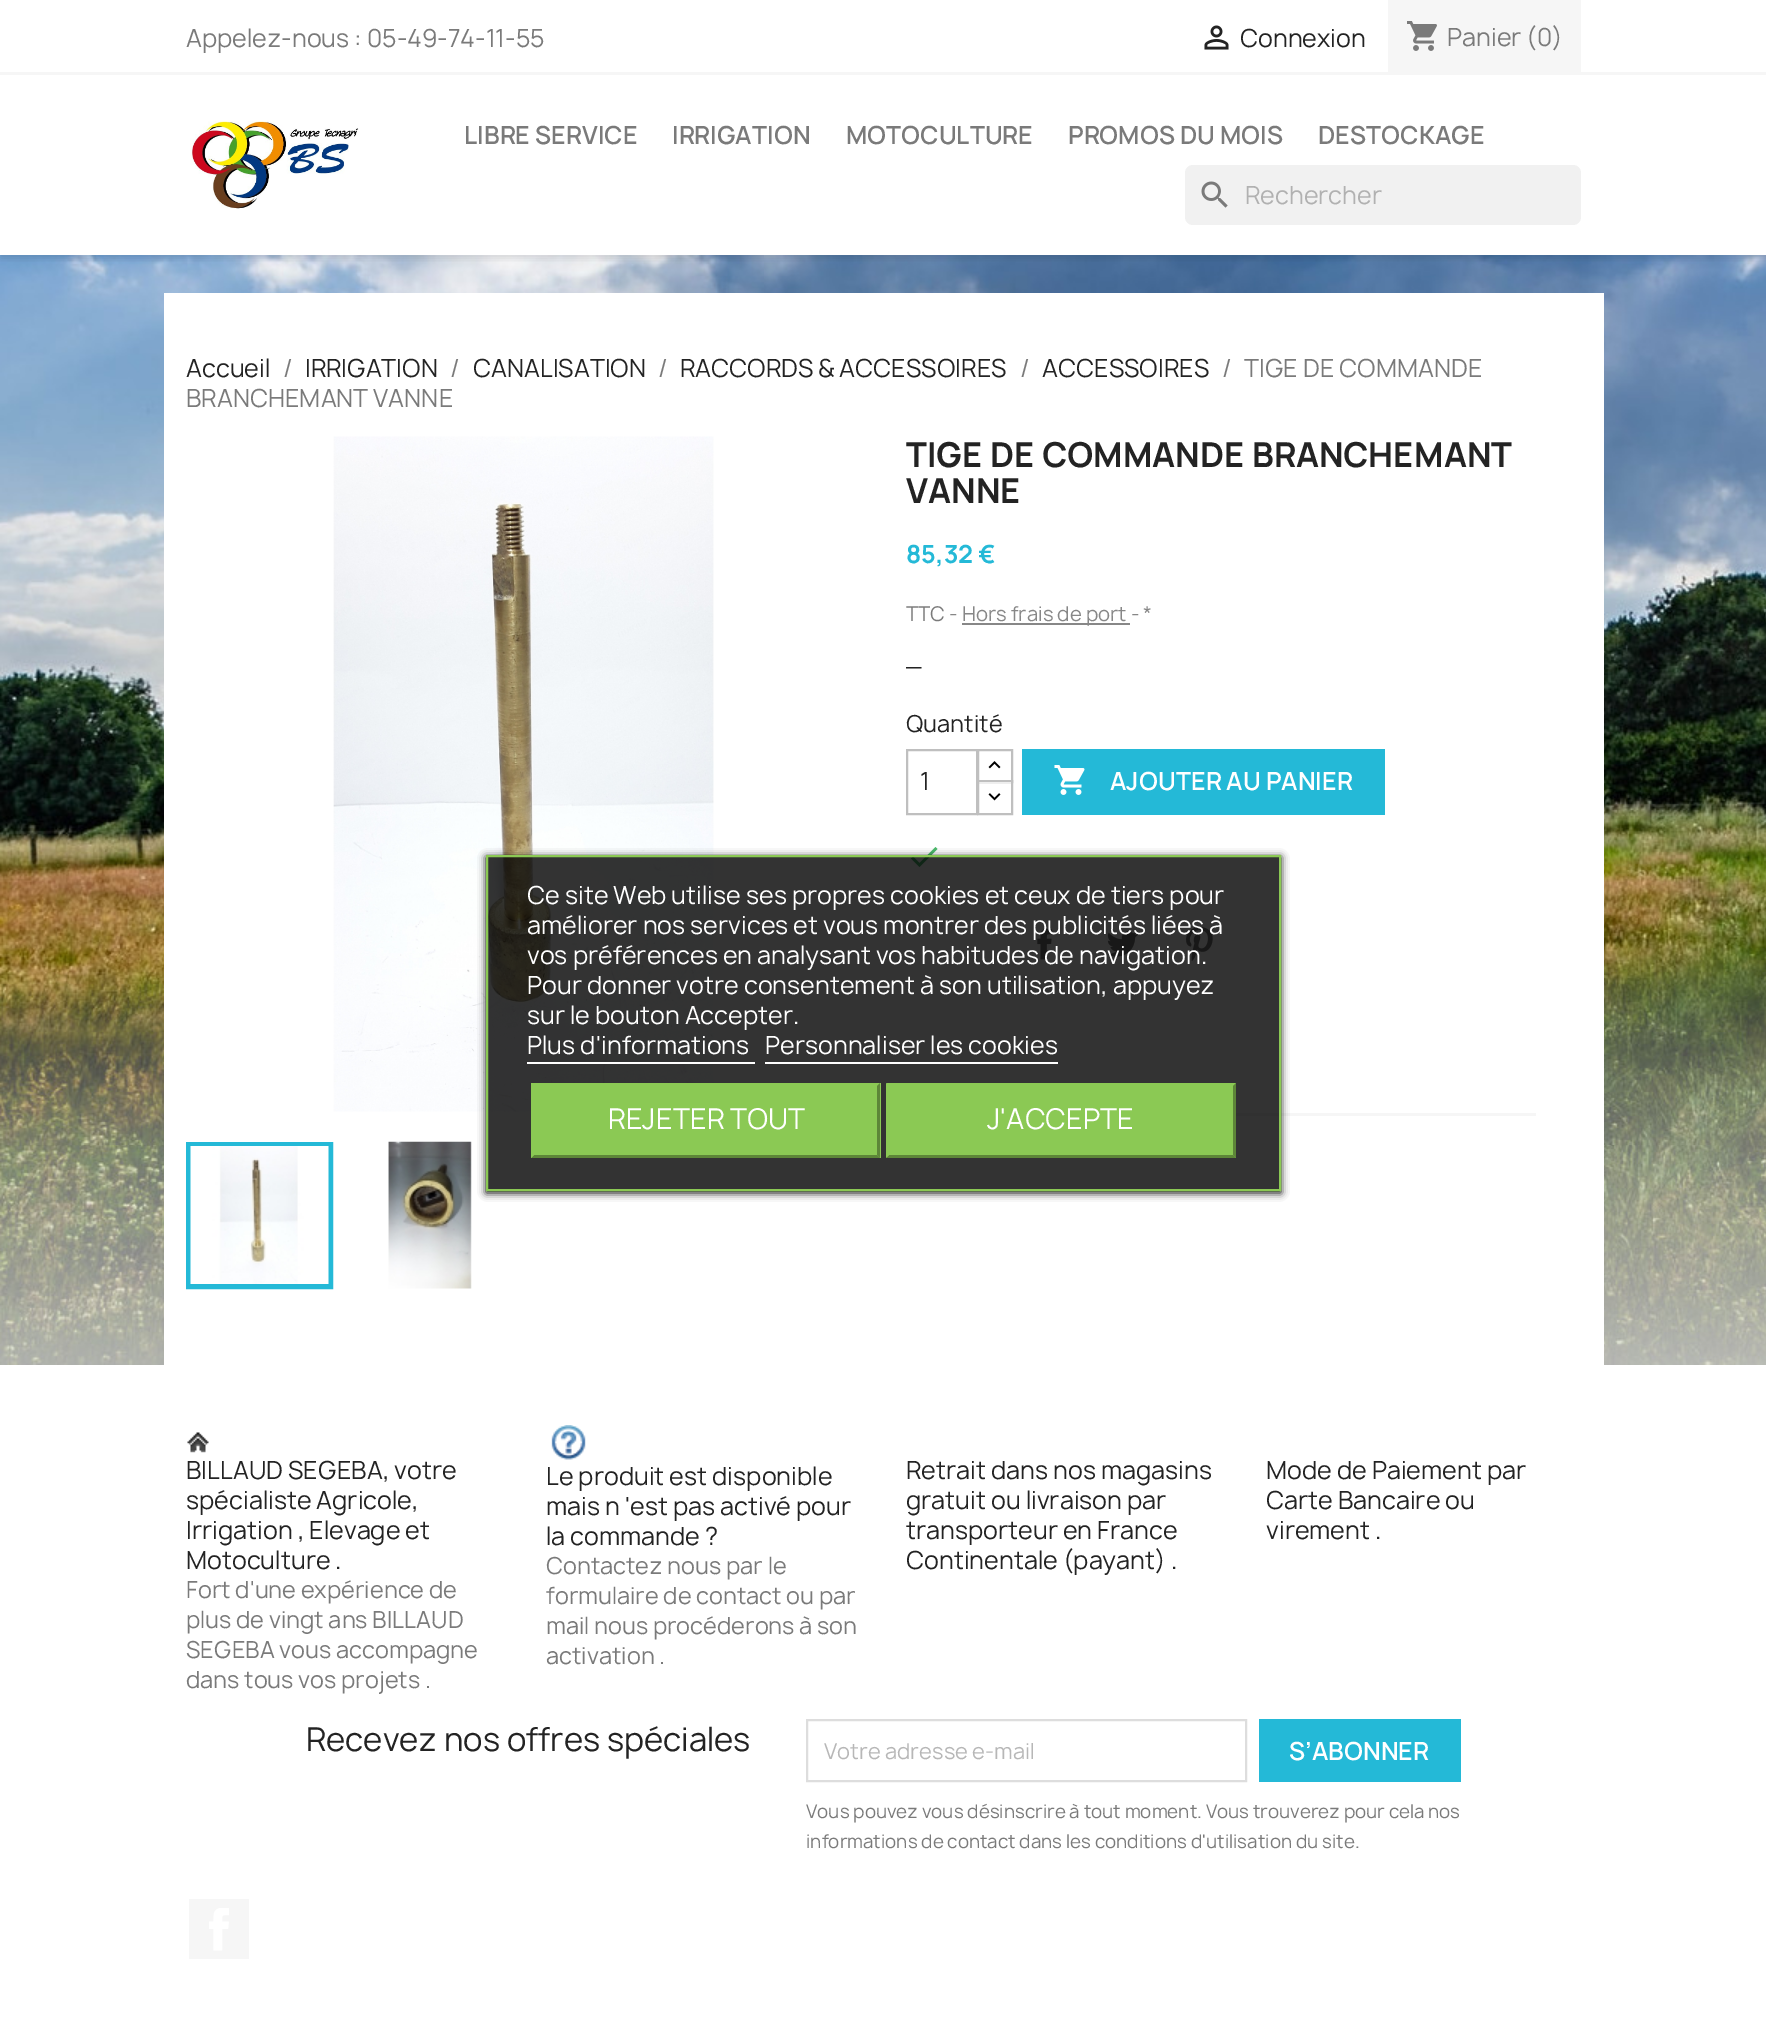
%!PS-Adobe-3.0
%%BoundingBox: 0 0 1766 2044
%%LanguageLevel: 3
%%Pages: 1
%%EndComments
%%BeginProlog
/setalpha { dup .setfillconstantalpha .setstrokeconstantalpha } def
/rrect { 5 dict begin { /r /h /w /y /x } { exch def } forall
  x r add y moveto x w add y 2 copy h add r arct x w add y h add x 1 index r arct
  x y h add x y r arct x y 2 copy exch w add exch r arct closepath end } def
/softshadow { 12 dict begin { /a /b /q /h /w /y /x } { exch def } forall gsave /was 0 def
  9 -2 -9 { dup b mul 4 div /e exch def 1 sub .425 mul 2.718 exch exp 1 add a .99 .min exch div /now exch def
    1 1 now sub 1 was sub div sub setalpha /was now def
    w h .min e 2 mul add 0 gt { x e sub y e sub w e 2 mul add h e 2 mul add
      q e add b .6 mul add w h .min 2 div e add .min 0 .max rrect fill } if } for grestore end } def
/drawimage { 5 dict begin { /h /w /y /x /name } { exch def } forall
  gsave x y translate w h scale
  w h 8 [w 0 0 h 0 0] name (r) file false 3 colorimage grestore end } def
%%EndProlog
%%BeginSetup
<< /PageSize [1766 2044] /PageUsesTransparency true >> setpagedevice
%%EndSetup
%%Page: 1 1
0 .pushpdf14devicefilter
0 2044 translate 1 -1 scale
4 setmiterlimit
1 setgray
0 0 1766 2044 rectfill
(images/5.raw) 0 255 1766 1110 drawimage
gsave
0 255 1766 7 rectclip
0 setgray
0 3 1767 255 0 4 0.11 softshadow
grestore
0.965 setgray
0 72 1766 3 rectfill
(images/1.raw) 1204 25 25 25 drawimage
1388 0 193 72 rectfill
(images/2.raw) 1407 21 30 30 drawimage
(images/3.raw) 190 121 169 88 drawimage
0.945 setgray
1185 165 396 60 8 rrect fill
(images/4.raw) 1201 181 27 27 drawimage
1 setgray
164 293 1440 1072 rectfill
(images/6.raw) 333 436 381 676 drawimage
0.141 0.725 0.843 setrgbcolor
5 setlinewidth
188.5 1144.5 142 142 rectstroke
(images/7.raw) 388 1141 84 148 drawimage
(images/8.raw) 190 1146 139 138 drawimage
0.529 setgray
962 623 168 2 rectfill
0.749 setgray
2 setlinewidth
978 750 34 32 rectstroke
1 setgray
979 782 32 1 rectfill
0.749 setgray
978 781 34 33 rectstroke
907 750 70 64 rectstroke
(images/9.raw) 988 761 13 8 drawimage
(images/10.raw) 988 793 13 8 drawimage
0.141 0.725 0.843 setrgbcolor
1022 749 363 66 rectfill
(images/11.raw) 1054 765 31 30 drawimage
0.298 0.733 0.424 setrgbcolor
newpath 919.5 863 moveto 935.5 847 lineto 937.5 849 lineto 919.5 867 lineto 911 858.5 lineto 913 856.5 lineto closepath fill
(images/12.raw) 1037 928 15 32 drawimage
(images/13.raw) 1107 931 32 26 drawimage
(images/14.raw) 1186 926 27 35 drawimage
0.965 setgray
1236 1113 300 3 rectfill
gsave
newpath 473 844 moveto 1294 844 lineto 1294 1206 lineto 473 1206 lineto closepath 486 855 moveto 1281 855 lineto 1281 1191 lineto 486 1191 lineto closepath eoclip newpath
0 setgray
486 857 795 336 0 4 1 softshadow
grestore
0.8 setalpha
0 setgray
newpath 487 856 moveto 1280 856 lineto 1280 1190 lineto 487 1190 lineto closepath fill
1 setalpha
0.545 0.788 0.329 setrgbcolor
newpath 487 856 moveto 1280 856 lineto 1280 1190 lineto 487 1190 lineto closepath stroke
1 setgray
527 1062 228 2 rectfill
765 1062 293 2 rectfill
0.545 0.788 0.329 setrgbcolor
531 1083 350 75 rectfill
0.365 0.525 0.22 setrgbcolor
newpath 880 1083 moveto 880 1158 lineto 877 1155 lineto 877 1086 lineto closepath fill
newpath 880 1158 moveto 531 1158 lineto 534 1155 lineto 877 1155 lineto closepath fill
0.545 0.788 0.329 setrgbcolor
newpath 531 1158 moveto 531 1083 lineto 534 1086 lineto 534 1155 lineto closepath fill
887 1083 349 75 rectfill
newpath 886 1083 moveto 1236 1083 lineto 1233 1086 lineto 889 1086 lineto closepath fill
0.365 0.525 0.22 setrgbcolor
newpath 1236 1083 moveto 1236 1158 lineto 1233 1155 lineto 1233 1086 lineto closepath fill
newpath 1236 1158 moveto 886 1158 lineto 889 1155 lineto 1233 1155 lineto closepath fill
0.545 0.788 0.329 setrgbcolor
newpath 886 1158 moveto 886 1083 lineto 889 1086 lineto 889 1155 lineto closepath fill
(images/15.raw) 187 1432 22 21 drawimage
(images/16.raw) 551 1425 35 35 drawimage
0.867 setgray
807 1720 439 61 rectstroke
0.141 0.725 0.843 setrgbcolor
1259 1719 202 63 rectfill
0.965 setgray
189 1899 60 60 rectfill
(images/17.raw) 209 1908 20 43 drawimage
/Manrope-Regular [24 0 0 -24 0 0] selectfont
0.478 setgray
186 47 moveto (Appelez-nous : 05-49-74-11-55) show
0.137 setgray
1240 47 moveto (Connexion) show
0.478 setgray
1447 46 moveto (Panier \(0\)) show
/Manrope-SemiBold [24 0 0 -24 0 0] selectfont
464 144 moveto (LIBRE SERVICE) show
672 144 moveto (IRRIGATION) show
846 144 moveto (MOTOCULTURE) show
1068 144 moveto (PROMOS DU MOIS) show
1318 144 moveto (DESTOCKAGE) show
/Manrope-Regular [24 0 0 -24 0 0] selectfont
0.694 setgray
1245 204 moveto (Rechercher) show
0.137 setgray
186 377 moveto (Accueil) show
0.478 setgray
283 377 moveto (/) show
0.137 setgray
305 377 moveto (IRRIGATION) show
0.478 setgray
450 377 moveto (/) show
0.137 setgray
473 377 moveto (CANALISATION) show
0.478 setgray
658 377 moveto (/) show
0.137 setgray
680 377 moveto (RACCORDS & ACCESSOIRES) show
0.478 setgray
1020 377 moveto (/) show
0.137 setgray
1042 377 moveto (ACCESSOIRES) show
0.478 setgray
1222 377 moveto (/) show
1244 377 moveto (TIGE DE COMMANDE) show
186 407 moveto (BRANCHEMANT VANNE) show
/Manrope-Bold [33 0 0 -33 0 0] selectfont
0.137 setgray
906 467 moveto (TIGE DE COMMANDE BRANCHEMANT) show
906 503 moveto (VANNE) show
/Manrope-Bold [24 0 0 -24 0 0] selectfont
0.141 0.725 0.843 setrgbcolor
906 563 moveto (85,32 €) show
/Manrope-Regular [19.5 0 0 -19.5 0 0] selectfont
0.478 setgray
906 621 moveto (TTC) show
0.529 setgray
949 621 moveto (-) show
962 621 moveto (Hors frais de port - *) show
/Manrope-Regular [22.5 0 0 -22.5 0 0] selectfont
0.137 setgray
906 666 moveto (_) show
906 732 moveto (Quantité) show
/Manrope-Regular [24 0 0 -24 0 0] selectfont
920 790 moveto (1) show
/Manrope-SemiBold [24 0 0 -24 0 0] selectfont
1 setgray
1110 790 moveto (AJOUTER AU PANIER) show
/Manrope-Regular [24 0 0 -24 0 0] selectfont
527 904 moveto (Ce site Web utilise ses propres cookies et ceux de tiers pour) show
527 934 moveto (améliorer nos services et vous montrer des publicités liées à) show
527 964 moveto (vos préférences en analysant vos habitudes de navigation.) show
527 994 moveto (Pour donner votre consentement à son utilisation, appuyez) show
527 1024 moveto (sur le bouton Accepter.) show
527 1054 moveto (Plus d'informations) show
765 1054 moveto (Personnaliser les cookies) show
/Manrope-Regular [27.5 0 0 -27.5 0 0] selectfont
608 1129 moveto (REJETER TOUT) show
987 1129 moveto (J'ACCEPTE) show
/Manrope-Regular [24 0 0 -24 0 0] selectfont
0.137 setgray
186 1479 moveto (BILLAUD SEGEBA, votre) show
186 1509 moveto (spécialiste Agricole,) show
186 1539 moveto (Irrigation , Elevage et) show
186 1569 moveto (Motoculture .) show
/Manrope-Regular [22.5 0 0 -22.5 0 0] selectfont
0.478 setgray
186 1598 moveto (Fort d'une expérience de) show
186 1628 moveto (plus de vingt ans BILLAUD) show
186 1658 moveto (SEGEBA vous accompagne) show
186 1688 moveto (dans tous vos projets .) show
/Manrope-Regular [24 0 0 -24 0 0] selectfont
0.137 setgray
546 1485 moveto (Le produit est disponible) show
546 1515 moveto (mais n 'est pas activé pour) show
546 1545 moveto (la commande ?) show
/Manrope-Regular [22.5 0 0 -22.5 0 0] selectfont
0.478 setgray
546 1574 moveto (Contactez nous par le) show
546 1604 moveto (formulaire de contact ou par) show
546 1634 moveto (mail nous procéderons à son) show
546 1664 moveto (activation .) show
/Manrope-Regular [24 0 0 -24 0 0] selectfont
0.137 setgray
906 1479 moveto (Retrait dans nos magasins) show
906 1509 moveto (gratuit ou livraison par) show
906 1539 moveto (transporteur en France) show
906 1569 moveto (Continentale \(payant\) .) show
1266 1479 moveto (Mode de Paiement par) show
1266 1509 moveto (Carte Bancaire ou) show
1266 1539 moveto (virement .) show
/Manrope-Regular [31.5 0 0 -31.5 0 0] selectfont
306 1751 moveto (Recevez nos offres spéciales) show
/Manrope-Regular [21 0 0 -21 0 0] selectfont
0.718 setgray
824 1759 moveto (Votre adresse e-mail) show
/Manrope-SemiBold [24 0 0 -24 0 0] selectfont
1 setgray
1289 1760 moveto (S’ABONNER) show
/Manrope-Regular [18 0 0 -18 0 0] selectfont
0.478 setgray
806 1818 moveto (Vous pouvez vous désinscrire à tout moment. Vous trouverez pour cela nos) show
806 1848 moveto (informations de contact dans les conditions d'utilisation du site.) show
.poppdf14devicefilter showpage
%%EOF
